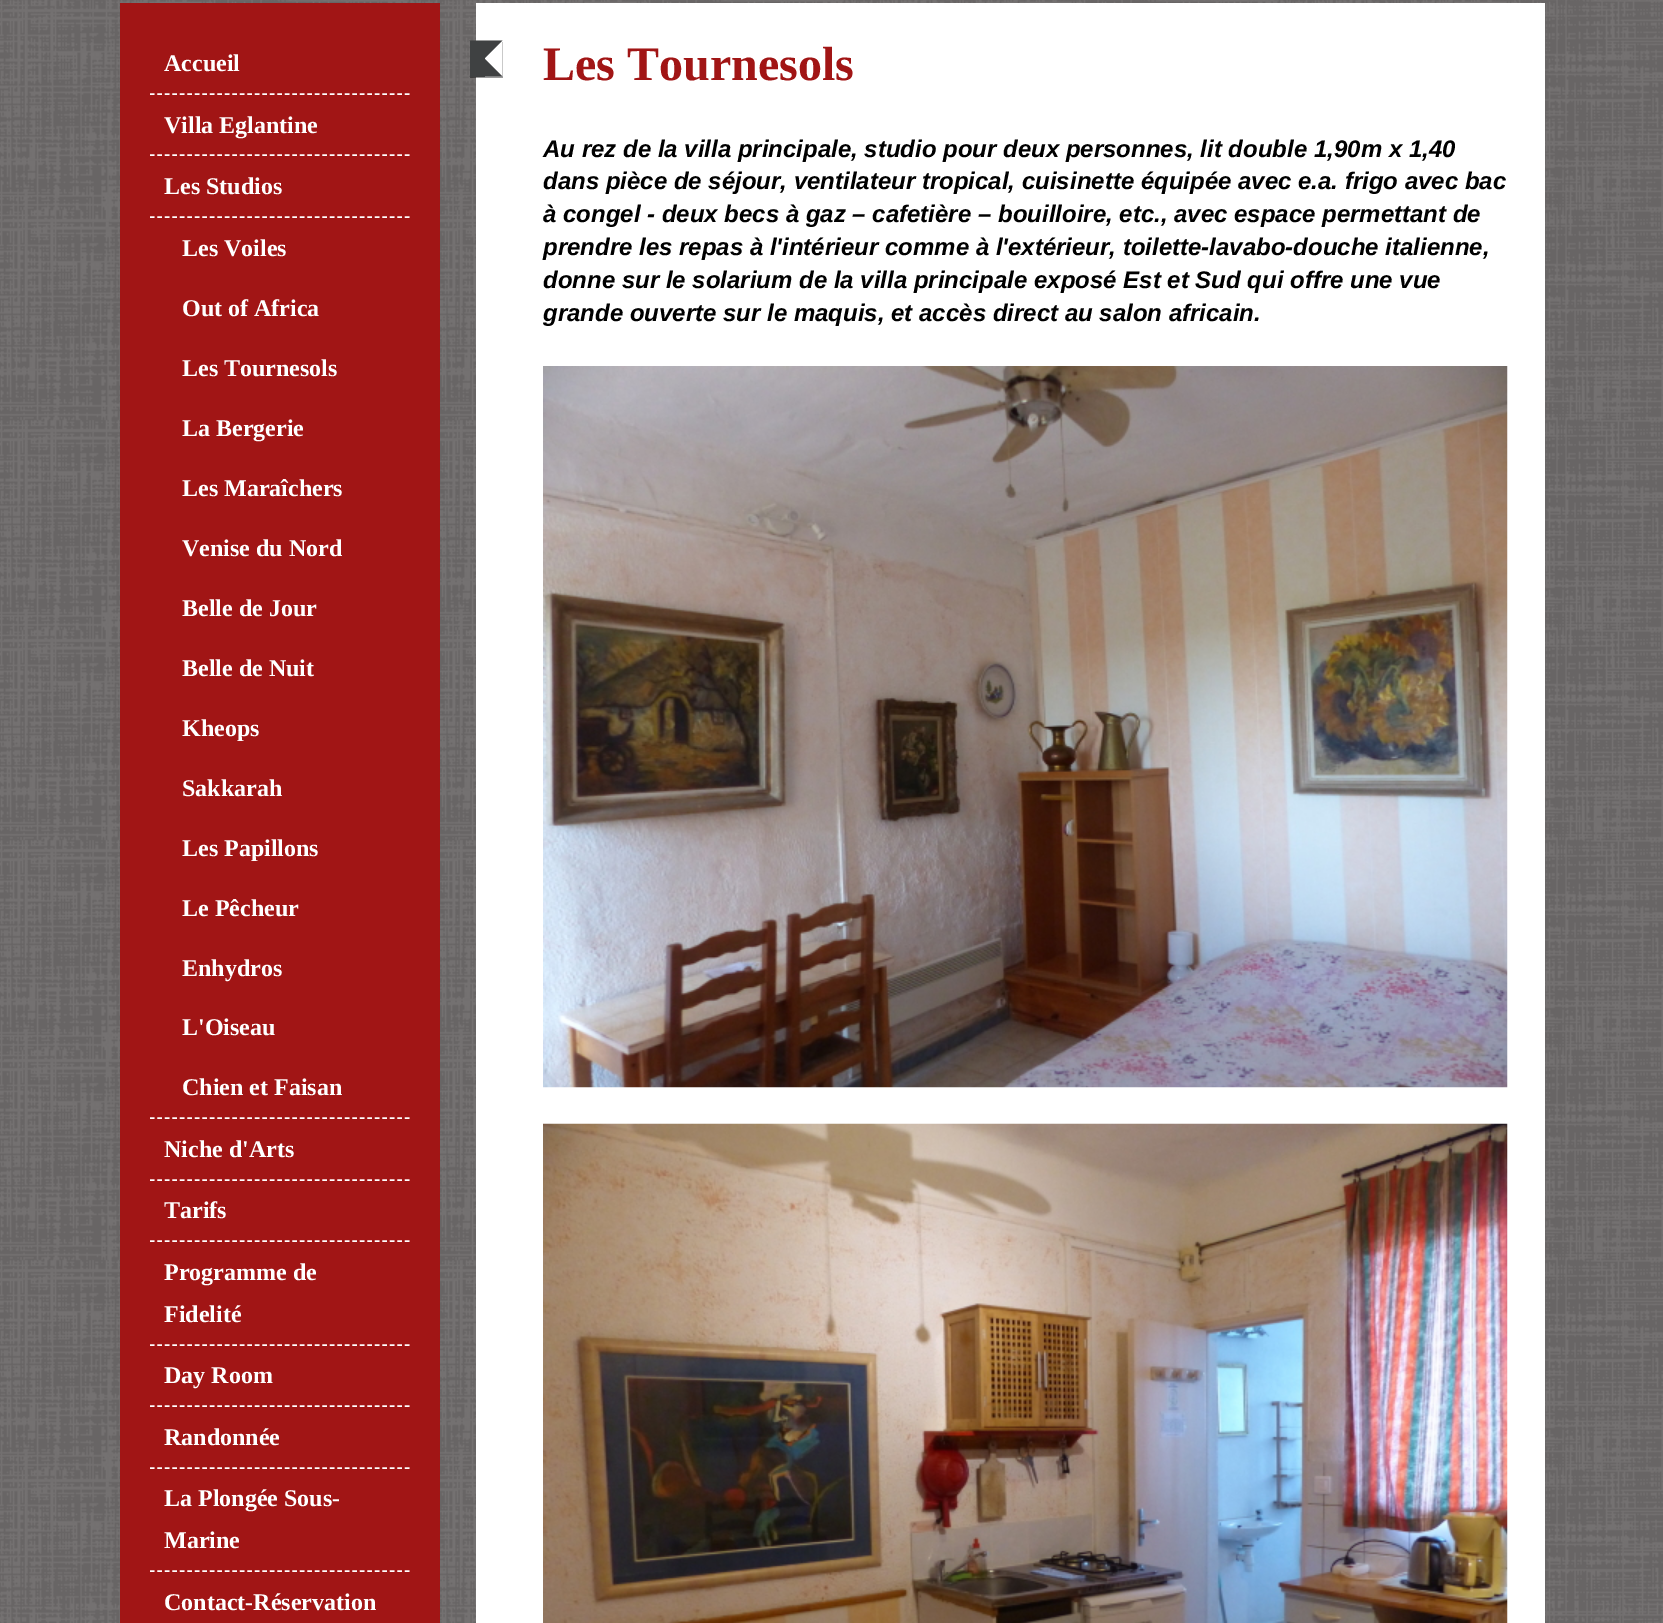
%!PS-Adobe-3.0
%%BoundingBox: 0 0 1663 1623
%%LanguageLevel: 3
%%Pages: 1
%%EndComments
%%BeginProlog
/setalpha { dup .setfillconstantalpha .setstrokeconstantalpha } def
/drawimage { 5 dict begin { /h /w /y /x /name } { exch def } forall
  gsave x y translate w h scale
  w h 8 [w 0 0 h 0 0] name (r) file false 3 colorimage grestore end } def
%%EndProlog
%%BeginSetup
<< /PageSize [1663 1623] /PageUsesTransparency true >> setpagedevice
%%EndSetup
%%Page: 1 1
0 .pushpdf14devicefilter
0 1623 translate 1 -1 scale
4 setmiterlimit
0.502 0.486 0.486 setrgbcolor
0 0 1663 1623 rectfill
(images/1.raw) 0 0 1663 1623 drawimage
0.631 0.082 0.082 setrgbcolor
120 3 320 1620 rectfill
1 setgray
476 3 1069 1620 rectfill
0.4 setalpha
0 setgray
newpath 470 76.5 moveto 470 78 lineto 503 78 lineto 503 42 lineto 502.5 42 lineto 502.5 76.5 lineto closepath fill
1 setalpha
0.247 0.255 0.259 setrgbcolor
newpath 469.5 40.5 moveto 502.5 40.5 lineto 484.5 58.5 lineto closepath fill
newpath 502.5 76.5 moveto 469.5 76.5 lineto 484.5 58.5 lineto closepath fill
470 41 15 36 rectfill
(images/2.raw) 543 366 965 722 drawimage
(images/3.raw) 543 1123 965 500 drawimage
1 setgray
1.5 setlinewidth
[4.5 3] 0 setdash
newpath 150 94 moveto 409.5 94 lineto stroke
newpath 150 155 moveto 409.5 155 lineto stroke
newpath 150 217 moveto 409.5 217 lineto stroke
newpath 150 1118 moveto 409.5 1118 lineto stroke
newpath 150 1180 moveto 409.5 1180 lineto stroke
newpath 150 1241 moveto 409.5 1241 lineto stroke
newpath 150 1345 moveto 409.5 1345 lineto stroke
newpath 150 1406 moveto 409.5 1406 lineto stroke
newpath 150 1468 moveto 409.5 1468 lineto stroke
newpath 150 1571 moveto 409.5 1571 lineto stroke
/LiberationSerif-Bold [48 0 0 -48 0 0] selectfont
0.631 0.082 0.082 setrgbcolor
543 80 moveto (Les Tournesols) show
/LiberationSans-BoldItalic [24 0 0 -24 0 0] selectfont
0 setgray
543 157 moveto (Au rez de la villa principale, studio pour deux personnes, lit double 1,90m x 1,40) show
543 189 moveto (dans pièce de séjour, ventilateur tropical, cuisinette équipée avec e.a. frigo avec bac) show
543 222 moveto (à congel - deux becs à gaz – cafetière – bouilloire, etc., avec espace permettant de) show
543 255 moveto (prendre les repas à l'intérieur comme à l'extérieur, toilette-lavabo-douche italienne,) show
543 288 moveto (donne sur le solarium de la villa principale exposé Est et Sud qui offre une vue) show
543 321 moveto (grande ouverte sur le maquis, et accès direct au salon africain.) show
/LiberationSerif-Bold [24 0 0 -24 0 0] selectfont
1 setgray
164 71 moveto (Accueil) show
164 133 moveto (Villa Eglantine) show
164 194 moveto (Les Studios) show
182 256 moveto (Les Voiles) show
182 316 moveto (Out of Africa) show
182 376 moveto (Les Tournesols) show
182 436 moveto (La Bergerie) show
182 496 moveto (Les Maraîchers) show
182 556 moveto (Venise du Nord) show
182 616 moveto (Belle de Jour) show
182 676 moveto (Belle de Nuit) show
182 736 moveto (Kheops) show
182 796 moveto (Sakkarah) show
182 856 moveto (Les Papillons) show
182 916 moveto (Le Pêcheur) show
182 976 moveto (Enhydros) show
182 1035 moveto (L'Oiseau) show
182 1095 moveto (Chien et Faisan) show
164 1157 moveto (Niche d'Arts) show
164 1218 moveto (Tarifs) show
164 1280 moveto (Programme de) show
164 1322 moveto (Fidelité) show
164 1383 moveto (Day Room) show
164 1445 moveto (Randonnée) show
164 1506 moveto (La Plongée Sous-) show
164 1548 moveto (Marine) show
164 1610 moveto (Contact-Réservation) show
.poppdf14devicefilter showpage
%%EOF
